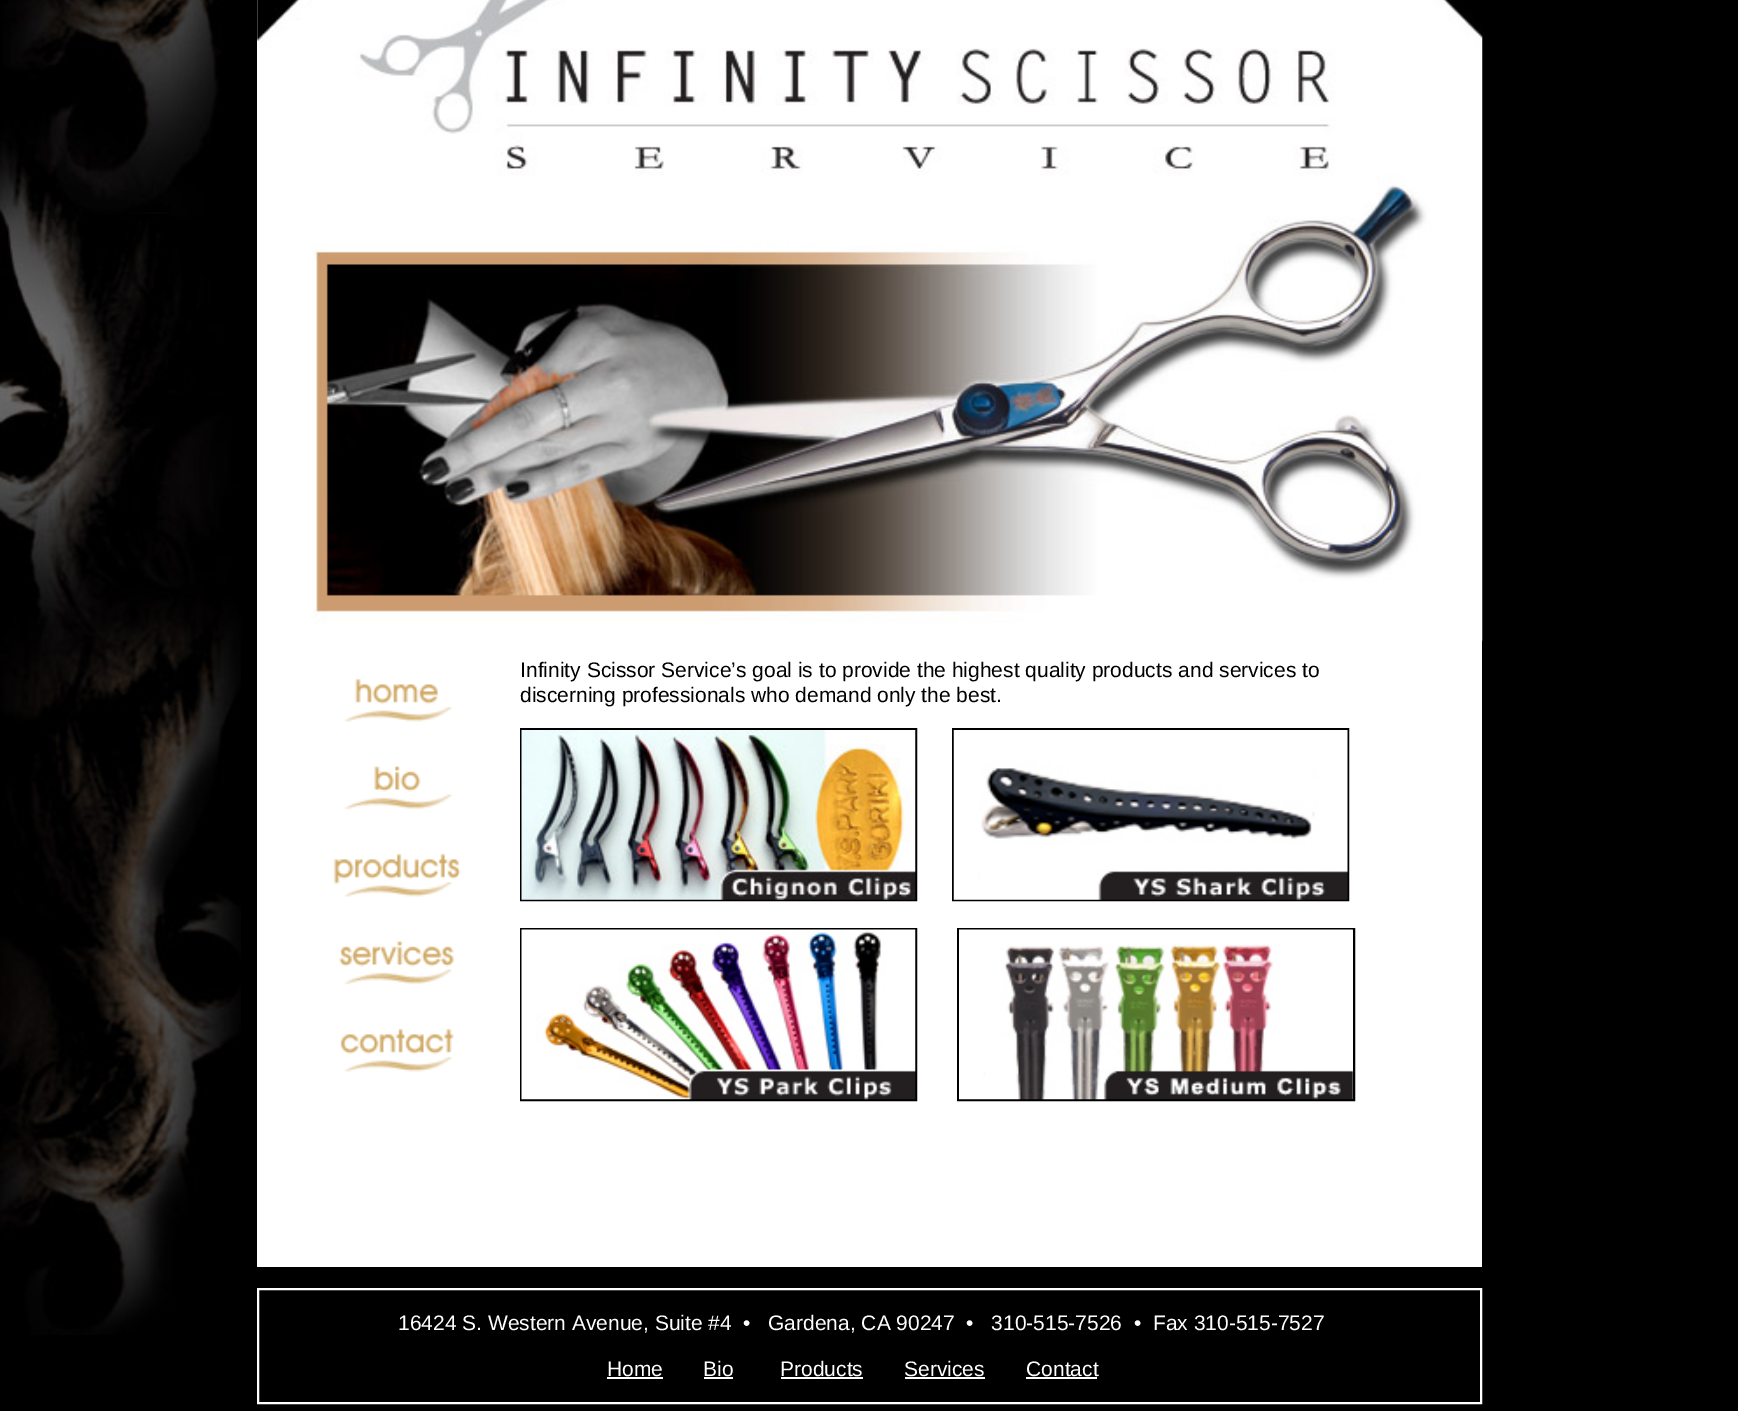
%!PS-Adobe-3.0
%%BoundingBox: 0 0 1738 1411
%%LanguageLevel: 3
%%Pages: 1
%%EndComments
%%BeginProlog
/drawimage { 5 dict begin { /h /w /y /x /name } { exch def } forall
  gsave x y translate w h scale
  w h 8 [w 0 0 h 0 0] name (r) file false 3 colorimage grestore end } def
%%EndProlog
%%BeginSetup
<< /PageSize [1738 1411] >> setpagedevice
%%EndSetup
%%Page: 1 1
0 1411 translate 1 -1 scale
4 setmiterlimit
0 setgray
0 0 1738 1411 rectfill
(images/1.raw) 0 0 241 1335 drawimage
1 setgray
257 0 1225 1267 rectfill
(images/2.raw) 257 0 1226 641 drawimage
(images/3.raw) 344 678 108 44 drawimage
(images/4.raw) 344 766 108 44 drawimage
(images/5.raw) 333 853 128 44 drawimage
(images/6.raw) 339 941 115 44 drawimage
(images/7.raw) 340 1028 114 44 drawimage
0 setgray
2 setlinewidth
521 729 395 171 rectstroke
953 729 395 171 rectstroke
(images/8.raw) 521 730 395 170 drawimage
(images/9.raw) 953 730 395 170 drawimage
521 929 395 171 rectstroke
958 929 396 171 rectstroke
(images/10.raw) 521 929 395 171 drawimage
(images/11.raw) 959 929 394 171 drawimage
1 setgray
258 1289 1223 114 rectstroke
607 1377 56 2 rectfill
704 1377 29 2 rectfill
781 1377 82 2 rectfill
905 1377 80 2 rectfill
1026 1377 71 2 rectfill
/LiberationSans-Regular [21 0 0 -21 0 0] selectfont
0 setgray
520 677 moveto (Infinity Scissor Service’s goal is to provide the highest quality products and services to) show
520 702 moveto (discerning professionals who demand only the best.) show
1 setgray
398 1330 moveto (16424 S. Western Avenue, Suite #4  •) show
768 1330 moveto (Gardena, CA 90247  •   310-515-7526  •  Fax 310-515-7527) show
607 1376 moveto (Home) show
703 1376 moveto (Bio) show
780 1376 moveto (Products) show
904 1376 moveto (Services) show
1026 1376 moveto (Contact) show
showpage
%%EOF
